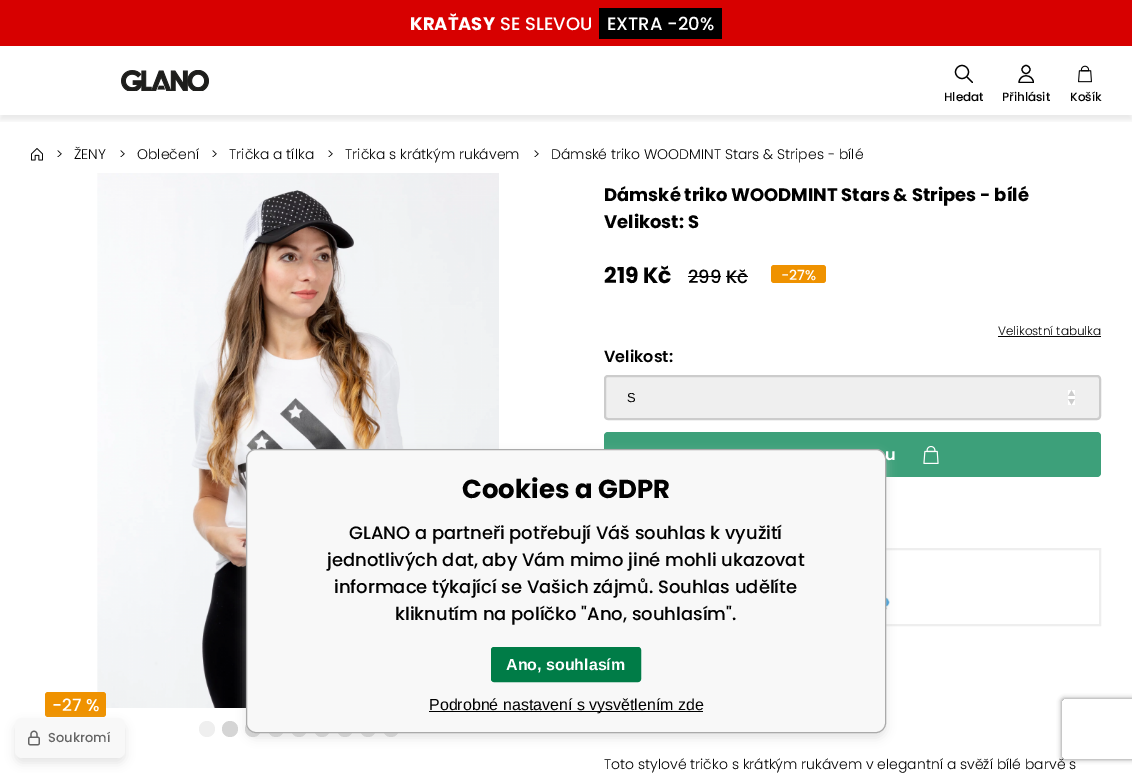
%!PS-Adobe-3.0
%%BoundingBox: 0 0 1132 773
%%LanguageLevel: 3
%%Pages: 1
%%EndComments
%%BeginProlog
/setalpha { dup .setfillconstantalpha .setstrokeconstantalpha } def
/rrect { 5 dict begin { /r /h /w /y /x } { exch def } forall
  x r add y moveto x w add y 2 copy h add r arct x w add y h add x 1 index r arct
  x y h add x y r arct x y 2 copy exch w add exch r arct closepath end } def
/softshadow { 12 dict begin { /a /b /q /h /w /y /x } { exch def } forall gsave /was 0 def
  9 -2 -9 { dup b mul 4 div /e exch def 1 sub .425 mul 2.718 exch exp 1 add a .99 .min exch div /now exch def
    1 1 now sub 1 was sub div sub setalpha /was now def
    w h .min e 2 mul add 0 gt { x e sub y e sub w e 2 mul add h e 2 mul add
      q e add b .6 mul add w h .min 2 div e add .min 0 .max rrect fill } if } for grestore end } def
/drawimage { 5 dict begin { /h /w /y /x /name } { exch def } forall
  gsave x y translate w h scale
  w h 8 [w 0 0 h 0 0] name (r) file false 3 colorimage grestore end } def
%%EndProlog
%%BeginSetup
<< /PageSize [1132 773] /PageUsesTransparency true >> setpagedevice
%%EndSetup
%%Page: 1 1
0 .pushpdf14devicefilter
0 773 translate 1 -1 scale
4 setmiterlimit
1 setgray
0 0 1132 773 rectfill
0.843 0 0 setrgbcolor
0 0 1132 46 rectfill
0 setgray
599 8 123 31 rectfill
gsave
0 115 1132 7 rectclip
0.063 setgray
0 51 1132 69 0 2.5 0.08 softshadow
grestore
(images/1.raw) 121 70 88 21 drawimage
1.2 setlinewidth
newpath 962 72 6.5 0 360 arc closepath stroke
1 setlinecap
1 setlinejoin
newpath 967 77 moveto 972.5 82.5 lineto stroke
0 setlinecap
0 setlinejoin
newpath 1026 69.5 4 0 360 arc closepath stroke
gsave
1018 65 16 18 rectclip
1 setlinecap
1 setlinejoin
newpath 1019 82.5 moveto 1033.5 82.5 lineto 1032.5 73.5 1019.5 73.5 1019 82.5 curveto closepath stroke
grestore
(images/2.raw) 1078 65 14 18 drawimage
(images/3.raw) 31 148 12 13 drawimage
(images/4.raw) 97 173 402 535 drawimage
0.937 0.573 0 setrgbcolor
45 692 61 25 3 rrect fill
0.937 setgray
newpath 207 729 8 0 360 arc closepath fill
0.835 setgray
newpath 230 729 8 0 360 arc closepath fill
newpath 253 729 8 0 360 arc closepath fill
newpath 276 729 8 0 360 arc closepath fill
newpath 299 729 8 0 360 arc closepath fill
newpath 322 729 8 0 360 arc closepath fill
newpath 345 729 8 0 360 arc closepath fill
newpath 368 729 8 0 360 arc closepath fill
newpath 391 729 8 0 360 arc closepath fill
0.004 setgray
688 276 33 1 rectfill
726 276 22 1 rectfill
0.937 0.573 0 setrgbcolor
771 265 55 18 3 rrect fill
0.004 setgray
998 336 103 1 rectfill
0.937 setgray
604 375 497 45 4 rrect fill
(images/5.raw) 1068 390 7 15 drawimage
0.8 setgray
2 setlinewidth
605 376 495 43 3 rrect stroke
0.239 0.627 0.478 setrgbcolor
604 432 497 45 4 rrect fill
(images/6.raw) 923 446 16 18 drawimage
0.933 setgray
605 549 495 76 rectstroke
(images/7.raw) 886 597 4 13 drawimage
0.784 setgray
246 454 640 284 10 5 0.5 softshadow
0.973 setgray
246.5 449.5 639 283 9.5 rrect gsave fill grestore
0.667 setgray
1 setlinewidth
stroke
0 0.486 0.278 setrgbcolor
491.5 647.5 149 34 2.5 rrect gsave fill grestore
stroke
0 setgray
429 711 274 1 rectfill
0.784 setgray
15 723 110 40 7 5 0.5 softshadow
0.973 setgray
15 718 110 40 7 rrect fill
(images/8.raw) 28 730 12 16 drawimage
gsave
newpath 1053 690 moveto 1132 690 lineto 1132 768 lineto 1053 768 lineto closepath 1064 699 moveto 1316 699 lineto 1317 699 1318 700 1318 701 curveto 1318 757 lineto 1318 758 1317 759 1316 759 curveto 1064 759 lineto 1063 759 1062 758 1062 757 curveto 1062 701 lineto 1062 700 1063 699 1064 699 curveto closepath eoclip newpath
0.502 setgray
1062 699 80 60 2 2.5 1 softshadow
grestore
/Poppins-Bold [18 0 0 -18 0 0] selectfont
1 setgray
410 30 moveto (KRAŤASY) show
/Poppins-Medium [18 0 0 -18 0 0] selectfont
500 30 moveto (SE SLEVOU) show
607 30 moveto (EXTRA -20%) show
/Poppins-Medium [12 0 0 -12 0 0] selectfont
0.004 setgray
944 101 moveto (Hledat) show
1002 101 moveto (Přihlásit) show
1070 101 moveto (Košík) show
/Poppins-Light [14 0 0 -14 0 0] selectfont
56 159 moveto (>) show
74 159 moveto (ŽENY) show
119 159 moveto (>) show
137 159 moveto (Oblečení) show
211 159 moveto (>) show
229 159 moveto (Trička a tílka) show
327 159 moveto (>) show
345 159 moveto (Trička s krátkým rukávem) show
533 159 moveto (>) show
551 159 moveto (Dámské triko WOODMINT Stars & Stripes - bílé) show
/Poppins-Medium [17 0 0 -17 0 0] selectfont
1 setgray
52 711 moveto (-27 %) show
/Poppins-Bold [18 0 0 -18 0 0] selectfont
0.004 setgray
604 201 moveto (Dámské triko WOODMINT Stars & Stripes - bílé) show
604 228 moveto (Velikost: S) show
/Poppins-Bold [22 0 0 -22 0 0] selectfont
604 283 moveto (219 Kč) show
/Poppins-Medium [18 0 0 -18 0 0] selectfont
688 283 moveto (299 Kč) show
/Poppins-Medium [14 0 0 -14 0 0] selectfont
1 setgray
781 280 moveto (-27%) show
/Poppins-Light [12 0 0 -12 0 0] selectfont
0.004 setgray
998 335 moveto (Velikostní tabulka) show
/Poppins-SemiBold [16 0 0 -16 0 0] selectfont
604 362 moveto (Velikost:) show
/LiberationSans-Regular [13 0 0 -13 0 0] selectfont
627 402 moveto (S) show
/Poppins-SemiBold [16 0 0 -16 0 0] selectfont
1 setgray
885 460 moveto (u) show
/Poppins-Light [14 0 0 -14 0 0] selectfont
0.004 setgray
604 769 moveto (Toto stylové tričko s krátkým rukávem v elegantní a svěží bílé barvě s) show
/Poppins-Bold [26 0 0 -26 0 0] selectfont
462 498 moveto (Cookies a GDPR) show
/Poppins-Medium [18 0 0 -18 0 0] selectfont
349 539 moveto (GLANO a partneři potřebují Váš souhlas k využití) show
327 566 moveto (jednotlivých dat, aby Vám mimo jiné mohli ukazovat) show
334 593 moveto (informace týkající se Vašich zájmů. Souhlas udělíte) show
395 620 moveto (kliknutím na políčko "Ano, souhlasím".) show
/LiberationSans-Bold [16 0 0 -16 0 0] selectfont
1 setgray
506 670 moveto (Ano, souhlasím) show
/LiberationSans-Regular [16 0 0 -16 0 0] selectfont
0.004 setgray
429 710 moveto (Podrobné nastavení s vysvětlením zde) show
/Poppins-Medium [13 0 0 -13 0 0] selectfont
0.392 setgray
48 742 moveto (Soukromí) show
.poppdf14devicefilter showpage
%%EOF
